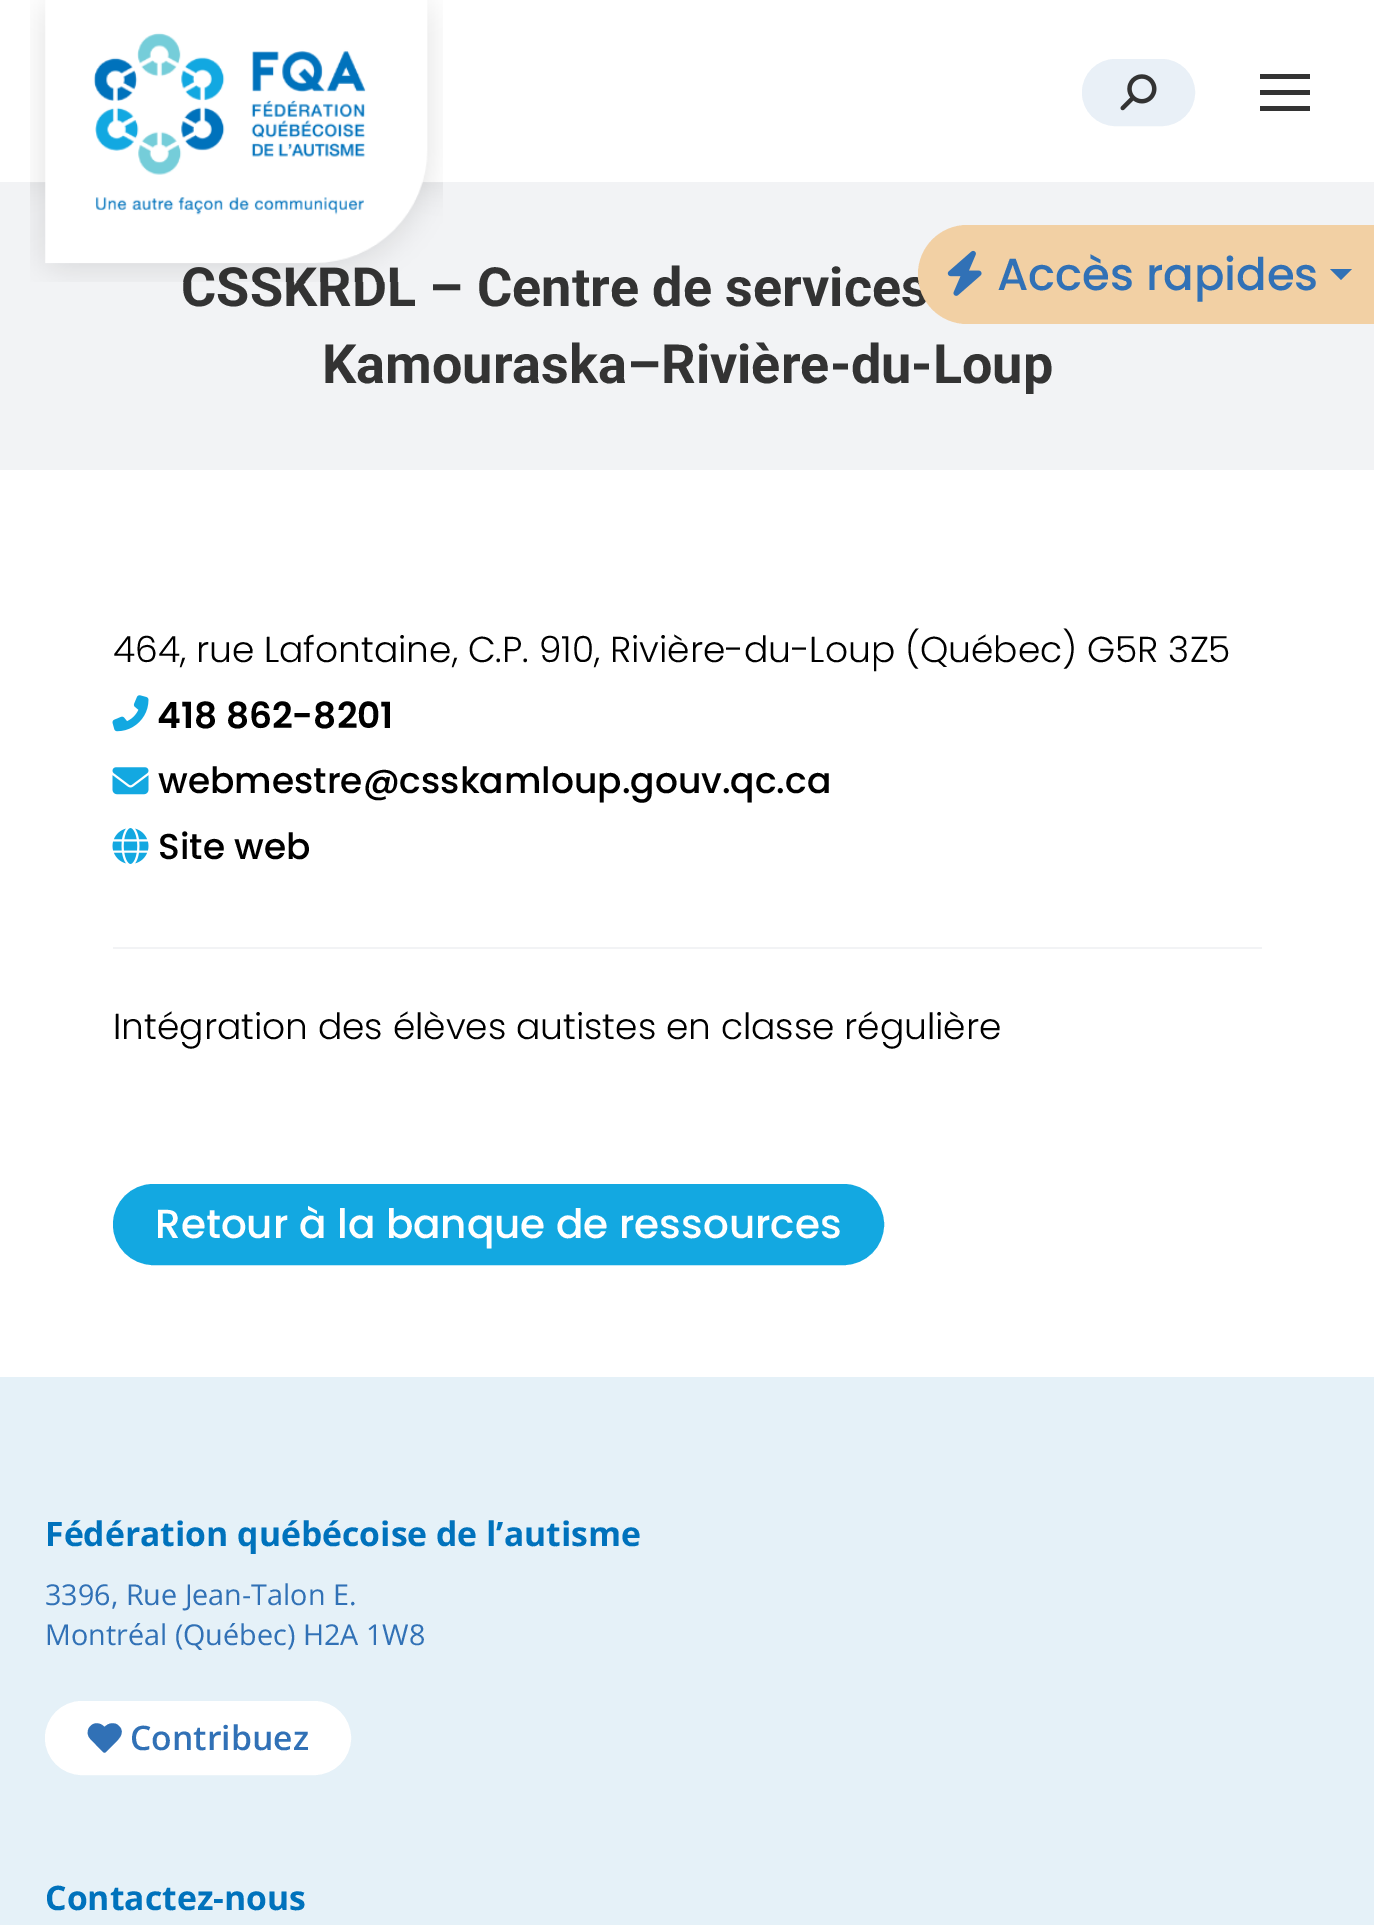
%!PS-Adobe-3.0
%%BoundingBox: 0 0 1374 1925
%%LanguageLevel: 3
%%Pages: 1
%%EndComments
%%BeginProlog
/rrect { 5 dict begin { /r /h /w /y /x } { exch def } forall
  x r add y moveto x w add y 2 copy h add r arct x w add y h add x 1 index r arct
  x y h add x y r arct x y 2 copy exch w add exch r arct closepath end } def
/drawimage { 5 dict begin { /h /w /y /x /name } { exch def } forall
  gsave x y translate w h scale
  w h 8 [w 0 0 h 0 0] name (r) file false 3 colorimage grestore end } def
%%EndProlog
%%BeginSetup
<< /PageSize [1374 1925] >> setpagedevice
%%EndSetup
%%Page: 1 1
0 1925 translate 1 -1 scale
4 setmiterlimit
1 setgray
0 0 1374 1925 rectfill
0.914 0.941 0.969 setrgbcolor
1084.5 61.5 108 62 31 rrect gsave fill grestore
5 setlinewidth
stroke
(images/3.raw) 1120 74 37 37 drawimage
0.2 setgray
1260 74 50 5 rectfill
1260 90 50 5 rectfill
1260 106 50 5 rectfill
0.949 0.953 0.961 setrgbcolor
0 182 1374 288 rectfill
113 947 1149 2 rectfill
(images/4.raw) 112 695 37 37 drawimage
(images/5.raw) 112 767 37 28 drawimage
(images/6.raw) 112 828 37 36 drawimage
0.075 0.659 0.882 setrgbcolor
117.5 1188.5 762 72 36 rrect gsave fill grestore
9 setlinewidth
stroke
0.898 0.945 0.973 setrgbcolor
0 1377 1374 548 rectfill
1 setgray
49.5 1705.5 297 65 32.5 rrect gsave fill grestore
stroke
0.192 0.443 0.714 setrgbcolor
newpath 119 1726 moveto 114.5 1721.5 108.5 1723 104.5 1727 curveto 95 1717 82.5 1729.5 90 1738.5 curveto 101.5 1750.5 lineto 105 1753.5 104 1753.5 107.5 1750.5 curveto 112 1746 lineto 117 1740.5 126.5 1733.5 119 1726 curveto closepath fill
/Roboto-Bold [54 0 0 -54 0 0] selectfont
0.2 setgray
181 306 moveto (CSSKRDL – Centre de services) show
0.949 0.816 0.643 setrgbcolor
newpath 967.5 225 moveto 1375 225 lineto 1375 324 lineto 967.5 324 lineto 940 324 918 302 918 274.5 curveto 918 247 940 225 967.5 225 curveto closepath fill
0.192 0.443 0.714 setrgbcolor
newpath 1330 269 moveto 1352 269 lineto 1341 280 lineto closepath fill
/Poppins-Medium [45 0 0 -45 0 0] selectfont
997 290 moveto (Accès rapides) show
(images/1.raw) 947 250 35 46 drawimage
(images/2.raw) 30 0 413 282 drawimage
/Roboto-Bold [54 0 0 -54 0 0] selectfont
0.2 setgray
322 383 moveto (Kamouraska–Rivière-du-Loup) show
/Poppins-Light [36 0 0 -36 0 0] selectfont
0 setgray
113 662 moveto (464, rue Lafontaine, C.P. 910, Rivière-du-Loup \(Québec\) G5R 3Z5) show
/Poppins-SemiBold [36 0 0 -36 0 0] selectfont
157 728 moveto (418 862-8201) show
/Poppins-Medium [36 0 0 -36 0 0] selectfont
158 793 moveto (webmestre@csskamloup.gouv.qc.ca) show
158 859 moveto (Site web) show
/Poppins-Light [36 0 0 -36 0 0] selectfont
113 1039 moveto (Intégration des élèves autistes en classe régulière) show
/Poppins-Medium [40.5 0 0 -40.5 0 0] selectfont
1 setgray
155 1238 moveto (Retour à la banque de ressources) show
/OpenSans-Bold [33.75 0 0 -33.75 0 0] selectfont
0 0.447 0.737 setrgbcolor
45 1546 moveto (Fédération québécoise de l’autisme) show
/OpenSans-Regular [28.75 0 0 -28.75 0 0] selectfont
0.192 0.443 0.714 setrgbcolor
45 1605 moveto (3396, Rue Jean-Talon E.) show
45 1645 moveto (Montréal \(Québec\) H2A 1W8) show
/OpenSans-SemiBold [33.75 0 0 -33.75 0 0] selectfont
130 1750 moveto (Contribuez) show
/OpenSans-Bold [33.75 0 0 -33.75 0 0] selectfont
0 0.447 0.737 setrgbcolor
45 1910 moveto (Contactez-nous) show
showpage
%%EOF
